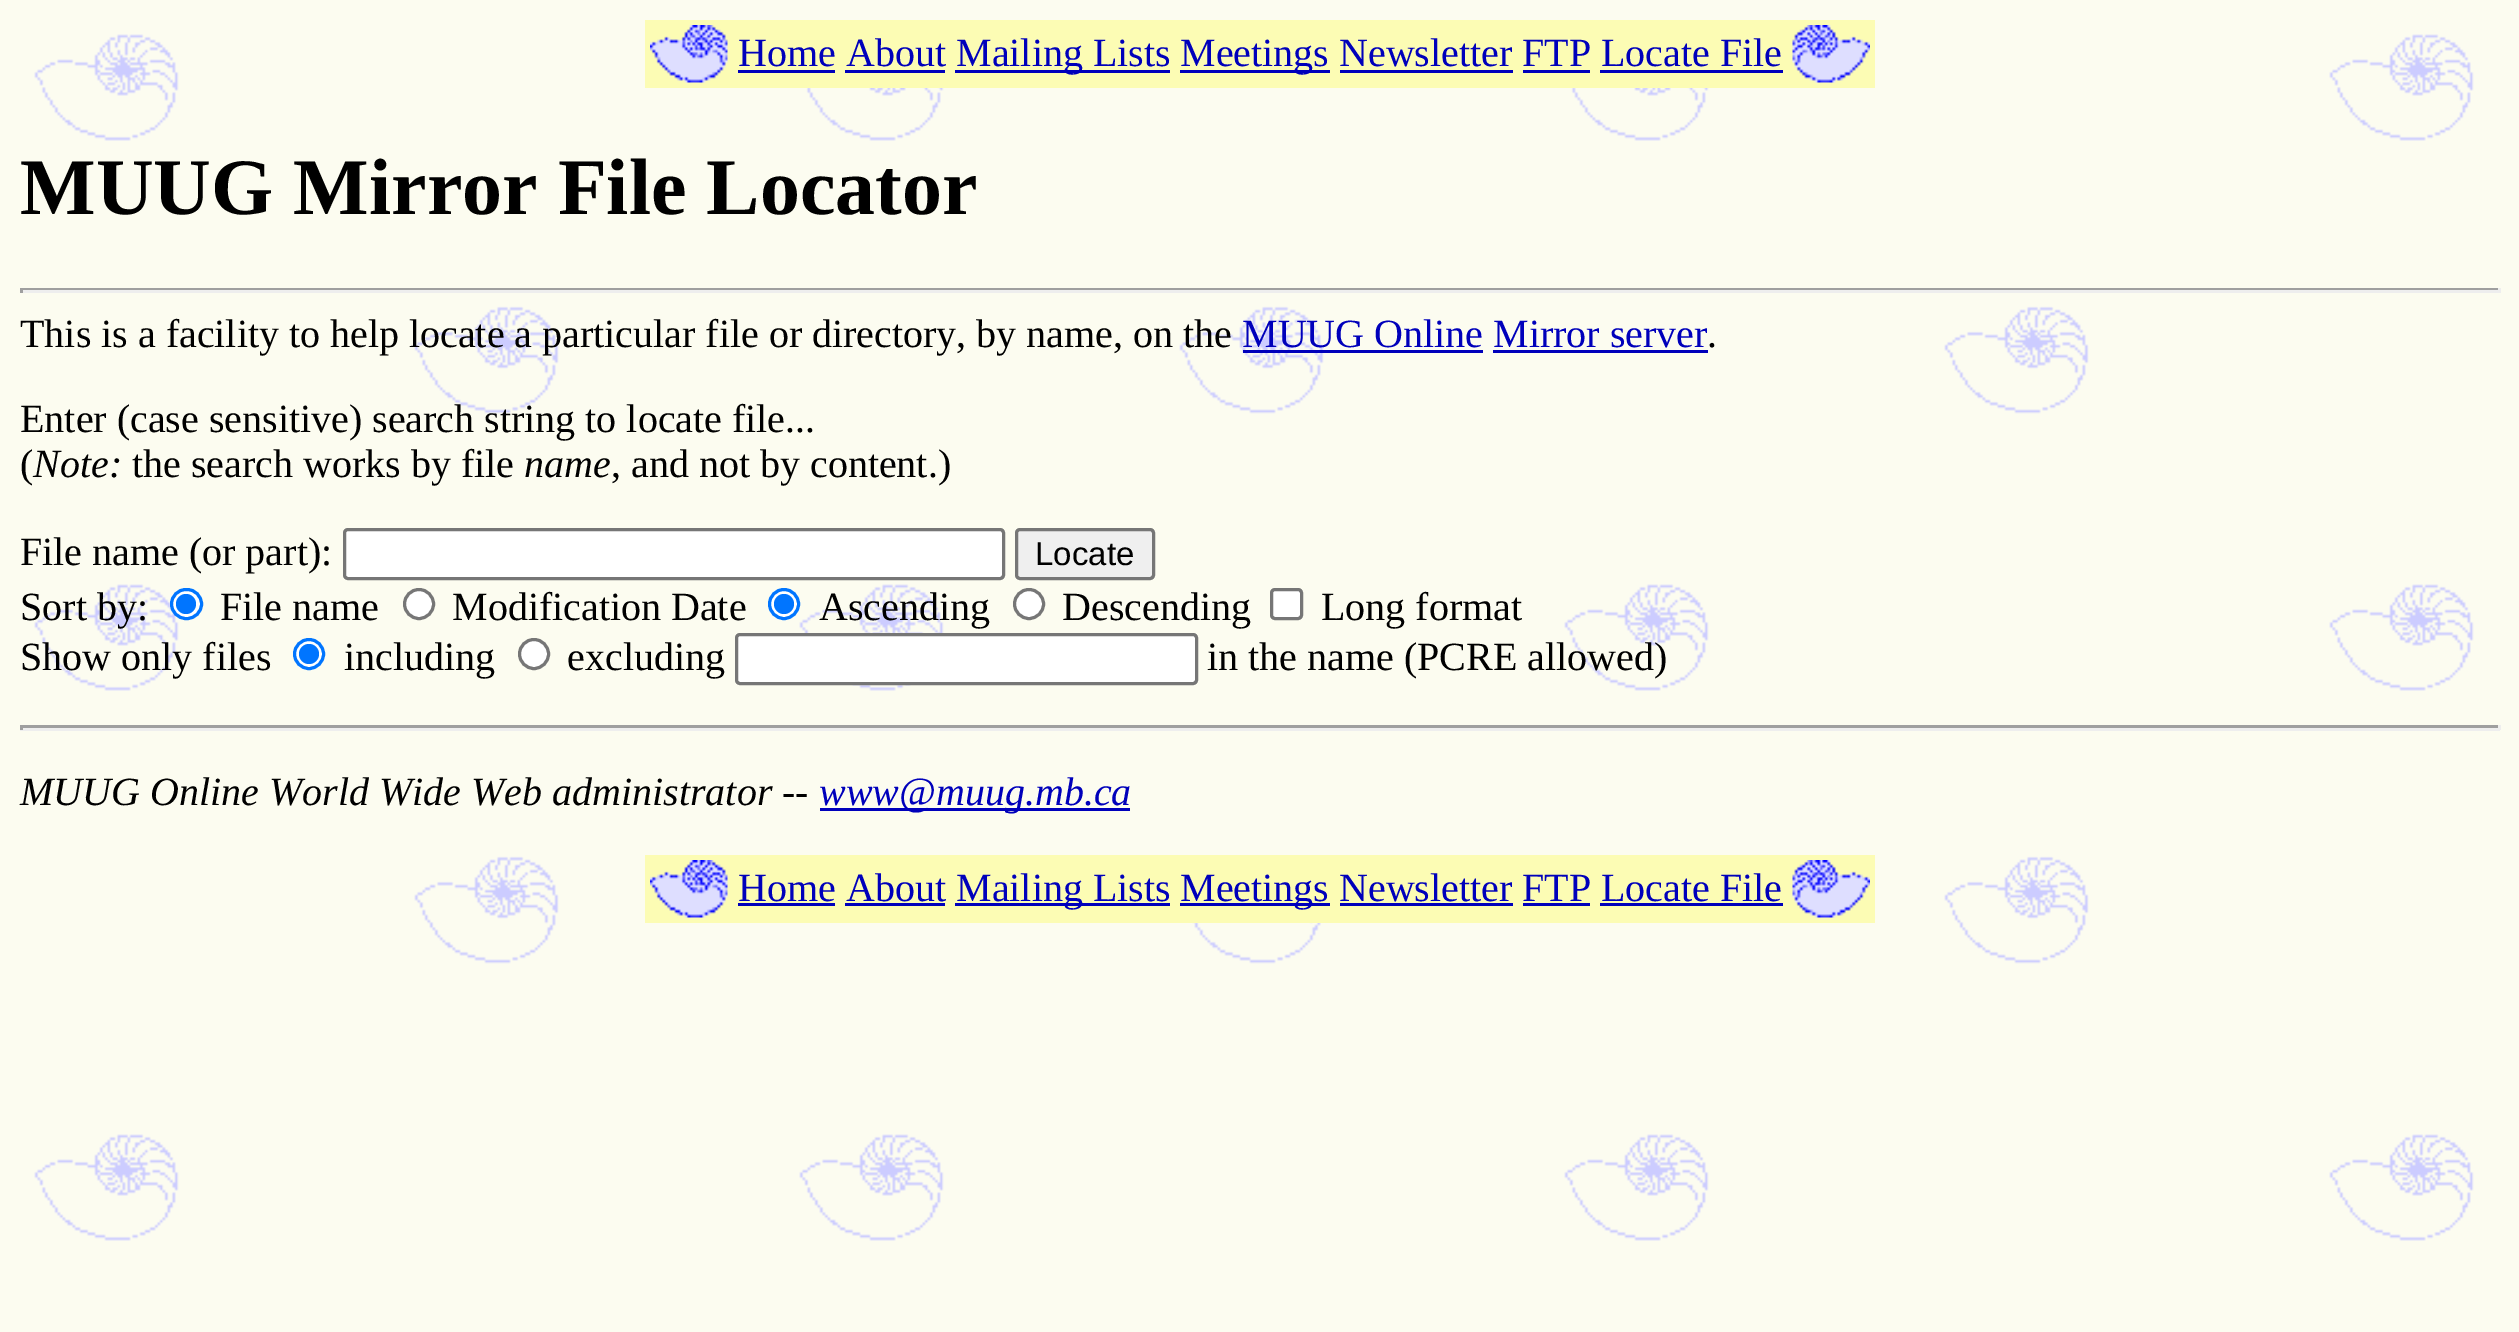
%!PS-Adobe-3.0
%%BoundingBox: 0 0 2519 1332
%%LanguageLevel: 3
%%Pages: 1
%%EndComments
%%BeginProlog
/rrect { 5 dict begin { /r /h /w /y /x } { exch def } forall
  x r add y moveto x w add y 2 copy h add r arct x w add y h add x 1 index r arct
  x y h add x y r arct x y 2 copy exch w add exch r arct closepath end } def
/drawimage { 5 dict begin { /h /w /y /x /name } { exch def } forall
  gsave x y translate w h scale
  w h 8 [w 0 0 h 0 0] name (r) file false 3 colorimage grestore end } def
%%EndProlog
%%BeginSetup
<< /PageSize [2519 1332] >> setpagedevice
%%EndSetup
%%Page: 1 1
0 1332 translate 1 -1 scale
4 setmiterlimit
0.988 0.988 0.941 setrgbcolor
0 0 2519 1332 rectfill
(images/1.raw) 34 34 2440 1207 drawimage
0.988 0.988 0.706 setrgbcolor
645 20 1230 68 rectfill
(images/2.raw) 650 25 78 58 drawimage
0 0 0.733 setrgbcolor
738 70 97 3 rectfill
955 70 215 3 rectfill
1180 70 150 3 rectfill
(images/3.raw) 1792 25 78 58 drawimage
845 70 100 3 rectfill
1340 70 173 3 rectfill
1523 70 67 3 rectfill
1600 70 183 3 rectfill
0.624 setgray
20 288 2480 2 rectfill
0.933 setgray
2498 288 3 5 rectfill
20 290 2480 3 rectfill
0.624 setgray
20 288 3 5 rectfill
0 0 0.733 setrgbcolor
1243 350 240 3 rectfill
1493 350 215 3 rectfill
1 setgray
344.5 529.5 659 49 3.5 rrect gsave fill grestore
0.463 setgray
3 setlinewidth
stroke
0.937 setgray
1016.5 529.5 137 49 3.5 rrect gsave fill grestore
0.463 setgray
stroke
1 setgray
171.5 589.5 30 29 14.5 rrect gsave fill grestore
0 0.459 1 setrgbcolor
stroke
newpath 186 604 10 0 360 arc closepath fill
1 setgray
newpath 419 604 14.5 0 360 arc closepath gsave fill grestore
0.463 setgray
stroke
1 setgray
newpath 784 604 14.5 0 360 arc closepath gsave fill grestore
0 0.459 1 setrgbcolor
stroke
newpath 784 604 10 0 360 arc closepath fill
1 setgray
newpath 1029 604 14.5 0 360 arc closepath gsave fill grestore
0.463 setgray
stroke
1 setgray
1271.5 589.5 30 29 3.5 rrect gsave fill grestore
0.463 setgray
stroke
1 setgray
newpath 309 654 14.5 0 360 arc closepath gsave fill grestore
0 0.459 1 setrgbcolor
stroke
newpath 309 654 10 0 360 arc closepath fill
1 setgray
newpath 534 654 14.5 0 360 arc closepath gsave fill grestore
0.463 setgray
stroke
1 setgray
736.5 634.5 460 49 3.5 rrect gsave fill grestore
0.463 setgray
stroke
0.624 setgray
20 725 2480 3 rectfill
0.933 setgray
2498 725 3 5 rectfill
20 728 2480 3 rectfill
0.624 setgray
20 725 3 5 rectfill
0 0 0.733 setrgbcolor
820 808 310 3 rectfill
0.988 0.988 0.706 setrgbcolor
645 855 1230 68 rectfill
(images/2.raw) 650 860 78 58 drawimage
0 0 0.733 setrgbcolor
738 903 97 3 rectfill
955 903 215 3 rectfill
1180 903 150 3 rectfill
(images/3.raw) 1792 860 78 58 drawimage
845 903 100 3 rectfill
1340 903 173 3 rectfill
1523 903 67 3 rectfill
1600 903 183 3 rectfill
/LiberationSerif-Regular [40 0 0 -40 0 0] selectfont
738 66 moveto (Home About) show
956 66 moveto (Mailing Lists) show
1180 66 moveto (Meetings Newsletter FTP Locate File) show
/LiberationSerif-Bold [80 0 0 -80 0 0] selectfont
0 setgray
20 214 moveto (MUUG Mirror File Locator) show
/LiberationSerif-Regular [40 0 0 -40 0 0] selectfont
20 347 moveto (This is a facility to help locate a particular file or directory, by name, on the) show
0 0 0.733 setrgbcolor
1242 347 moveto (MUUG Online Mirror server) show
0 setgray
1707 347 moveto (.) show
20 432 moveto (Enter \(case sensitive\) search string to locate file...) show
20 477 moveto (\() show
/LiberationSerif-Italic [40 0 0 -40 0 0] selectfont
33 477 moveto (Note:) show
/LiberationSerif-Regular [40 0 0 -40 0 0] selectfont
132 477 moveto (the search works by file) show
/LiberationSerif-Italic [40 0 0 -40 0 0] selectfont
524 477 moveto (name) show
/LiberationSerif-Regular [40 0 0 -40 0 0] selectfont
611 477 moveto (, and not by content.\)) show
20 565 moveto (File name \(or part\):) show
/LiberationSans-Regular [33 0 0 -33 0 0] selectfont
1035 565 moveto (Locate) show
/LiberationSerif-Regular [40 0 0 -40 0 0] selectfont
20 620 moveto (Sort by:) show
220 620 moveto (File name) show
452 620 moveto (Modification Date) show
819 620 moveto (Ascending) show
1062 620 moveto (Descending) show
1321 620 moveto (Long format) show
20 670 moveto (Show only files) show
344 670 moveto (including) show
567 670 moveto (excluding) show
1207 670 moveto (in the name \(PCRE allowed\)) show
/LiberationSerif-Italic [40 0 0 -40 0 0] selectfont
20 805 moveto (MUUG Online World Wide Web administrator --) show
0 0 0.733 setrgbcolor
819 805 moveto (www@muug.mb.ca) show
/LiberationSerif-Regular [40 0 0 -40 0 0] selectfont
738 901 moveto (Home About) show
956 901 moveto (Mailing Lists) show
1180 901 moveto (Meetings Newsletter FTP Locate File) show
showpage
%%EOF
